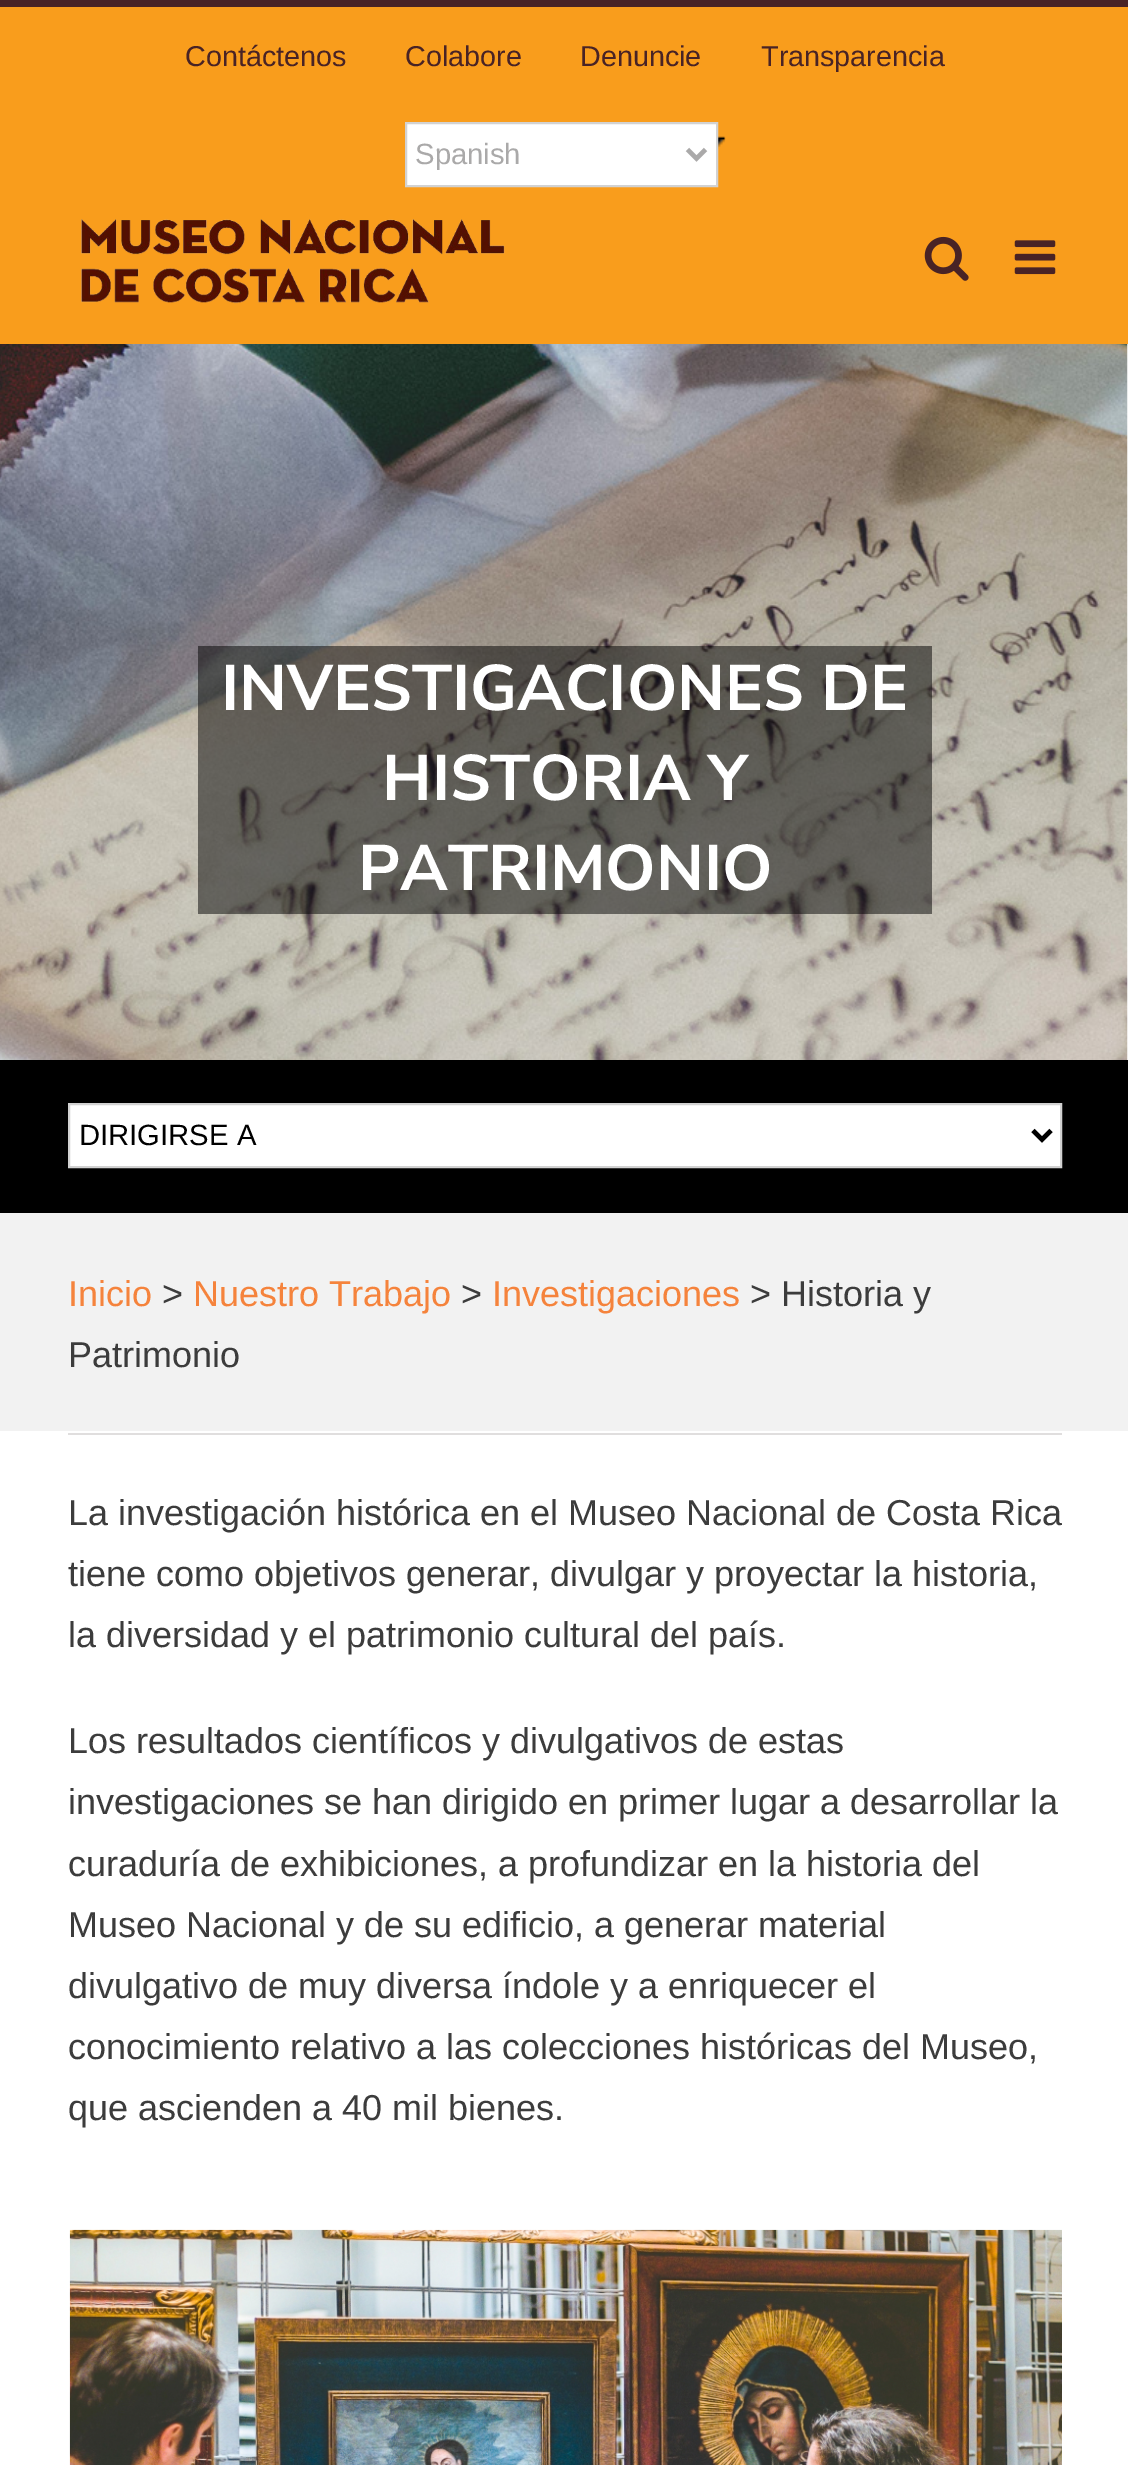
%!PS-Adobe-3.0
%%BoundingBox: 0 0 1128 2465
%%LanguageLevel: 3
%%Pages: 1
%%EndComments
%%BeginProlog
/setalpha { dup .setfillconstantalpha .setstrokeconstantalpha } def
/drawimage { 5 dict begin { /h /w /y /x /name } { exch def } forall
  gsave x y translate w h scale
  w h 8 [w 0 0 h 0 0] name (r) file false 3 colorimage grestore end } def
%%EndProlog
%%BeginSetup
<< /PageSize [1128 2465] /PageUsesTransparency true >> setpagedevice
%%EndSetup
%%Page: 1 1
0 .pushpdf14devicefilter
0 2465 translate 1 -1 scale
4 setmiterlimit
1 setgray
0 0 1128 2465 rectfill
0.976 0.616 0.11 setrgbcolor
0 7 1128 337 rectfill
0.286 0.137 0.145 setrgbcolor
0 0 1128 7 rectfill
(images/1.raw) 718 136 8 13 drawimage
1 setgray
newpath 406 123 moveto 717 123 lineto 717 186 lineto 406 186 lineto closepath gsave fill grestore
0.824 setgray
2 setlinewidth
stroke
0.667 0.663 0.663 setrgbcolor
4.5 setlinewidth
newpath 687.5 149.5 moveto 696.5 158.5 lineto 705.5 149.5 lineto stroke
(images/2.raw) 81 219 424 85 drawimage
(images/3.raw) 924 236 45 45 drawimage
(images/4.raw) 1014 240 42 35 drawimage
(images/5.raw) 0 344 1128 716 drawimage
0.5 setalpha
0 setgray
198 646 734 268 rectfill
1 setalpha
0 1060 1128 153 rectfill
1 setgray
newpath 69 1104 moveto 1061 1104 lineto 1061 1167 lineto 69 1167 lineto closepath gsave fill grestore
0.824 setgray
2 setlinewidth
stroke
0 setgray
4.5 setlinewidth
newpath 1033 1130.5 moveto 1042 1139.5 lineto 1051 1130.5 lineto stroke
0.949 setgray
0 1213 1128 218 rectfill
0.878 0.871 0.871 setrgbcolor
68 1433 994 2 rectfill
(images/6.raw) 69 2229 993 236 drawimage
/LiberationSans-Regular [28.75 0 0 -28.75 0 0] selectfont
0.286 0.137 0.145 setrgbcolor
185 66 moveto (Contáctenos) show
405 66 moveto (Colabore) show
580 66 moveto (Denuncie) show
761 66 moveto (Transparencia) show
/LiberationSans-Regular [29.25 0 0 -29.25 0 0] selectfont
0.667 0.663 0.663 setrgbcolor
415 164 moveto (Spanish) show
/NunitoSans-Bold [64.25 0 0 -64.25 0 0] selectfont
1 setgray
221 710 moveto (INVESTIGACIONES DE) show
382 800 moveto (HISTORIA Y) show
358 890 moveto (PATRIMONIO) show
/LiberationSans-Regular [29.25 0 0 -29.25 0 0] selectfont
0 setgray
79 1145 moveto (DIRIGIRSE A) show
/LiberationSans-Regular [36 0 0 -36 0 0] selectfont
0.961 0.514 0.235 setrgbcolor
68 1306 moveto (Inicio) show
0.235 setgray
162 1306 moveto (>) show
0.961 0.514 0.235 setrgbcolor
193 1306 moveto (Nuestro Trabajo) show
0.235 setgray
461 1306 moveto (>) show
0.961 0.514 0.235 setrgbcolor
492 1306 moveto (Investigaciones) show
0.235 setgray
750 1306 moveto (> Historia y) show
68 1367 moveto (Patrimonio) show
68 1525 moveto (La investigación histórica en el Museo Nacional de Costa Rica) show
68 1586 moveto (tiene como objetivos generar, divulgar y proyectar la historia,) show
68 1647 moveto (la diversidad y el patrimonio cultural del país.) show
68 1753 moveto (Los resultados científicos y divulgativos de estas) show
68 1814 moveto (investigaciones se han dirigido en primer lugar a desarrollar la) show
68 1876 moveto (curaduría de exhibiciones, a profundizar en la historia del) show
68 1937 moveto (Museo Nacional y de su edificio, a generar material) show
68 1998 moveto (divulgativo de muy diversa índole y a enriquecer el) show
68 2059 moveto (conocimiento relativo a las colecciones históricas del Museo,) show
68 2120 moveto (que ascienden a 40 mil bienes.) show
.poppdf14devicefilter showpage
%%EOF
